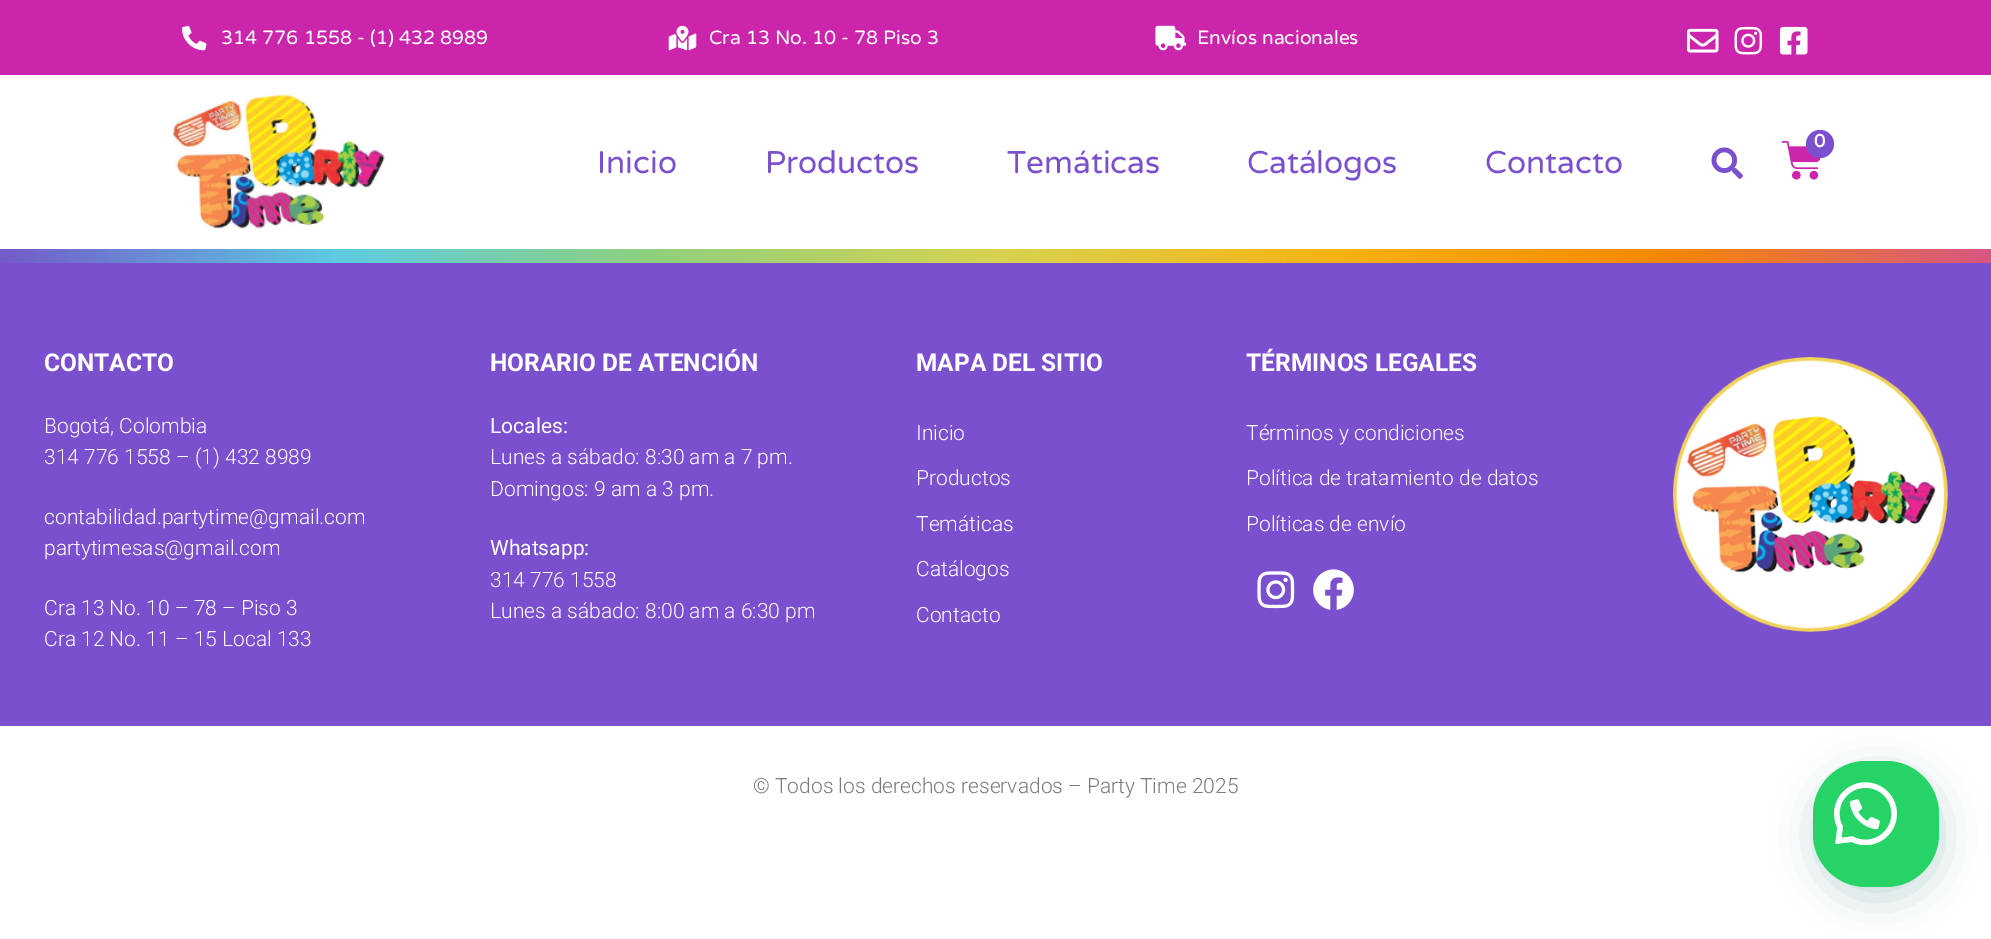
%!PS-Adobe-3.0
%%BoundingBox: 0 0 1991 939
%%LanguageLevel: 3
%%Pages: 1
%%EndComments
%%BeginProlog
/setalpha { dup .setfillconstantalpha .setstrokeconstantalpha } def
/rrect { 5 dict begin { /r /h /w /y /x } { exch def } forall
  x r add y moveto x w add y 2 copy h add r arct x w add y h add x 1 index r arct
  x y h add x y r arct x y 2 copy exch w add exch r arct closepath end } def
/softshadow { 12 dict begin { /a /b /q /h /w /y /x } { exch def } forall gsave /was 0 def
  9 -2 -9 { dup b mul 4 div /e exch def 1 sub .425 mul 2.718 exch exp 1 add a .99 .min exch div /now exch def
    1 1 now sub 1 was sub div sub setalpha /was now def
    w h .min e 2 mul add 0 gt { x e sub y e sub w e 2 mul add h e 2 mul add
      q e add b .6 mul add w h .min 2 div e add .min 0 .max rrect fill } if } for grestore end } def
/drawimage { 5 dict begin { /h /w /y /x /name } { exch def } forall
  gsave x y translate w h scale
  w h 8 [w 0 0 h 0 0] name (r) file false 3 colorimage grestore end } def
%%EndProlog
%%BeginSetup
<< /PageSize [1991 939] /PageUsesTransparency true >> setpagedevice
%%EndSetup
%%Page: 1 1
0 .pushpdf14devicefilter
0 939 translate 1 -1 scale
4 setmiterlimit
1 setgray
0 0 1991 939 rectfill
0.796 0.145 0.675 setrgbcolor
0 0 1991 75 rectfill
(images/1.raw) 182 25 25 26 drawimage
(images/2.raw) 668 25 29 26 drawimage
(images/3.raw) 1155 25 32 26 drawimage
(images/4.raw) 1687 28 32 25 drawimage
(images/5.raw) 1734 26 29 29 drawimage
(images/6.raw) 1779 26 29 29 drawimage
(images/7.raw) 173 93 214 136 drawimage
(images/8.raw) 1781 141 40 39 drawimage
0.482 0.314 0.812 setrgbcolor
newpath 1820 144 14 0 360 arc closepath fill
(images/9.raw) 1711 147 32 32 drawimage
gsave newpath 0 249 moveto 1991 249 lineto 1991 263 lineto 0 263 lineto closepath clip newpath
<< /ShadingType 2 /ColorSpace /DeviceRGB /Coords [0 256 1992 255] /Extend [true true] /Function << /FunctionType 3 /Domain [0 1] /Functions [<< /FunctionType 2 /Domain [0 1] /C0 [0.455 0.357 0.792] /C1 [0.365 0.796 0.882] /N 1 >> << /FunctionType 2 /Domain [0 1] /C0 [0.365 0.796 0.882] /C1 [0.565 0.816 0.486] /N 1 >> << /FunctionType 2 /Domain [0 1] /C0 [0.565 0.816 0.486] /C1 [0.843 0.827 0.318] /N 1 >> << /FunctionType 2 /Domain [0 1] /C0 [0.843 0.827 0.318] /C1 [0.969 0.702 0.075] /N 1 >> << /FunctionType 2 /Domain [0 1] /C0 [0.969 0.702 0.075] /C1 [0.973 0.537 0] /N 1 >> << /FunctionType 2 /Domain [0 1] /C0 [0.973 0.537 0] /C1 [0.843 0.337 0.514] /N 1 >>] /Bounds [0.17 0.33 0.5 0.67 0.83] /Encode [0 1 0 1 0 1 0 1 0 1 0 1] >> >> shfill grestore
0 263 1991 463 rectfill
(images/10.raw) 1257 571 38 38 drawimage
(images/11.raw) 1313 569 41 41 drawimage
(images/12.raw) 1673 357 275 275 drawimage
0.027 0.369 0.329 setrgbcolor
1815 772 126 126 53 21 0.24 softshadow
0.145 0.827 0.4 setrgbcolor
1813 761 126 126 53 rrect fill
(images/13.raw) 1834 782 63 63 drawimage
/VarelaRound-Regular [19.25 0 0 -19.25 0 0] selectfont
1 setgray
221 44 moveto (314 776 1558 - \(1\) 432 8989) show
709 44 moveto (Cra 13 No. 10 - 78 Piso 3) show
1197 44 moveto (Envíos nacionales) show
/VarelaRound-Bold [18 0 0 -18 0 0] selectfont
1814 147 moveto (0) show
/VarelaRound-Regular [31.5 0 0 -31.5 0 0] selectfont
0.482 0.314 0.812 setrgbcolor
597 173 moveto (Inicio) show
765 173 moveto (Productos) show
1007 173 moveto (Temáticas) show
1247 173 moveto (Catálogos) show
1485 173 moveto (Contacto) show
/Roboto-Bold [24.5 0 0 -24.5 0 0] selectfont
1 setgray
44 371 moveto (CONTACTO) show
/Roboto-Light [21 0 0 -21 0 0] selectfont
44 433 moveto (Bogotá, Colombia) show
44 464 moveto (314 776 1558 – \(1\) 432 8989) show
44 524 moveto (contabilidad.partytime@gmail.com) show
44 555 moveto (partytimesas@gmail.com) show
44 615 moveto (Cra 13 No. 10 – 78 – Piso 3) show
44 646 moveto (Cra 12 No. 11 – 15 Local 133) show
/Roboto-Bold [24.5 0 0 -24.5 0 0] selectfont
490 371 moveto (HORARIO DE ATENCIÓN) show
/Roboto-Regular [21 0 0 -21 0 0] selectfont
490 433 moveto (Locales:) show
/Roboto-Light [21 0 0 -21 0 0] selectfont
490 464 moveto (Lunes a sábado: 8:30 am a 7 pm.) show
490 496 moveto (Domingos: 9 am a 3 pm.) show
/Roboto-Regular [21 0 0 -21 0 0] selectfont
490 555 moveto (Whatsapp:) show
/Roboto-Light [21 0 0 -21 0 0] selectfont
490 587 moveto (314 776 1558) show
490 618 moveto (Lunes a sábado: 8:00 am a 6:30 pm) show
/Roboto-Bold [24.5 0 0 -24.5 0 0] selectfont
916 371 moveto (MAPA DEL SITIO) show
/Roboto-Light [21 0 0 -21 0 0] selectfont
916 440 moveto (Inicio) show
916 485 moveto (Productos) show
916 531 moveto (Temáticas) show
916 576 moveto (Catálogos) show
916 622 moveto (Contacto) show
/Roboto-Bold [24.5 0 0 -24.5 0 0] selectfont
1246 371 moveto (TÉRMINOS LEGALES) show
/Roboto-Light [21 0 0 -21 0 0] selectfont
1246 440 moveto (Términos y condiciones) show
1246 485 moveto (Política de tratamiento de datos) show
1246 531 moveto (Políticas de envío) show
0.478 setgray
753 793 moveto (© Todos los derechos reservados – Party Time 2025) show
.poppdf14devicefilter showpage
%%EOF
